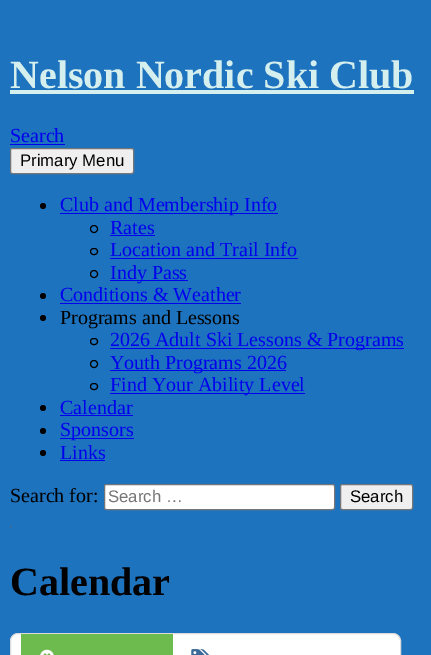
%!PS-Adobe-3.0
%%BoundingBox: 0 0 431 655
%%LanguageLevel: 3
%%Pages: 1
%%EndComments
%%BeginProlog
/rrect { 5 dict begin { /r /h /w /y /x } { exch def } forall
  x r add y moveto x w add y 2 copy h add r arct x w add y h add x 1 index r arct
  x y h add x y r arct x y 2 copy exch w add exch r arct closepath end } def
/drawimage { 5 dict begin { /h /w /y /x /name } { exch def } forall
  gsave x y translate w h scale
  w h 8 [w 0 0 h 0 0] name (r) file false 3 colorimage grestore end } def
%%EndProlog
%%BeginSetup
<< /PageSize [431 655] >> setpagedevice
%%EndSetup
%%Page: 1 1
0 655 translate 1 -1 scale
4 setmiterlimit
0.118 0.451 0.745 setrgbcolor
0 0 431 655 rectfill
0.835 0.937 0.937 setrgbcolor
10 90 404 4 rectfill
0 0 0.933 setrgbcolor
10 144 55 1 rectfill
0.937 setgray
10.5 148.5 123 25 2 rrect gsave fill grestore
0.463 setgray
stroke
0 setgray
newpath 43 206 3 0 360 arc closepath fill
0 0 0.933 setrgbcolor
60 213 218 1 rectfill
0 setgray
newpath 94 229 3.5 0 360 arc closepath stroke
0 0 0.933 setrgbcolor
110 235 45 1 rectfill
0 setgray
90.5 248.5 7 6 3 rrect stroke
0 0 0.933 setrgbcolor
110 258 188 1 rectfill
0 setgray
newpath 94 274 3.5 0 360 arc closepath stroke
0 0 0.933 setrgbcolor
110 280 78 1 rectfill
0 setgray
newpath 43 296 3 0 360 arc closepath fill
0 0 0.933 setrgbcolor
60 303 181 1 rectfill
0 setgray
newpath 43 318 3 0 360 arc closepath fill
90.5 338.5 7 6 3 rrect stroke
0 0 0.933 setrgbcolor
110 348 294 1 rectfill
0 setgray
newpath 94 364 3.5 0 360 arc closepath stroke
0 0 0.933 setrgbcolor
110 370 176 1 rectfill
0 setgray
90.5 383.5 7 6 3 rrect stroke
0 0 0.933 setrgbcolor
110 393 195 1 rectfill
0 setgray
newpath 43 408 3 0 360 arc closepath fill
0 0 0.933 setrgbcolor
60 415 73 1 rectfill
0 setgray
newpath 43 431 3 0 360 arc closepath fill
0 0 0.933 setrgbcolor
60 438 74 1 rectfill
0 setgray
newpath 43 453 3 0 360 arc closepath fill
0 0 0.933 setrgbcolor
60 460 45 1 rectfill
1 setgray
104.5 484.5 230 25 2 rrect gsave fill grestore
0.463 setgray
stroke
0.937 setgray
340.5 484.5 72 25 2 rrect gsave fill grestore
0.463 setgray
stroke
(images/1.raw) 10 526 2 2 drawimage
1 setgray
10.5 633.5 390 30 7.5 rrect gsave fill grestore
0.859 setgray
stroke
0.427 0.733 0.31 setrgbcolor
21 634 152 21 rectfill
(images/2.raw) 40 649 14 6 drawimage
(images/3.raw) 191 649 18 6 drawimage
/LiberationSerif-Bold [40 0 0 -40 0 0] selectfont
0.835 0.937 0.937 setrgbcolor
10 88 moveto (Nelson Nordic Ski Club) show
/LiberationSerif-Regular [20 0 0 -20 0 0] selectfont
0 0 0.933 setrgbcolor
10 142 moveto (Search) show
/LiberationSans-Regular [16.75 0 0 -16.75 0 0] selectfont
0 setgray
20 166 moveto (Primary Menu) show
/LiberationSerif-Regular [20 0 0 -20 0 0] selectfont
0 0 0.933 setrgbcolor
60 211 moveto (Club and Membership Info) show
110 234 moveto (Rates) show
110 256 moveto (Location and Trail Info) show
110 279 moveto (Indy Pass) show
60 301 moveto (Conditions & Weather) show
0 setgray
60 324 moveto (Programs and Lessons) show
0 0 0.933 setrgbcolor
110 346 moveto (2026 Adult Ski Lessons & Programs) show
110 369 moveto (Youth Programs 2026) show
110 391 moveto (Find Your Ability Level) show
60 414 moveto (Calendar) show
60 436 moveto (Sponsors) show
60 459 moveto (Links) show
0 setgray
10 502 moveto (Search for:) show
/LiberationSans-Regular [16.75 0 0 -16.75 0 0] selectfont
0.459 setgray
108 502 moveto (Search …) show
0 setgray
350 502 moveto (Search) show
/LiberationSerif-Bold [40 0 0 -40 0 0] selectfont
10 595 moveto (Calendar) show
showpage
%%EOF
